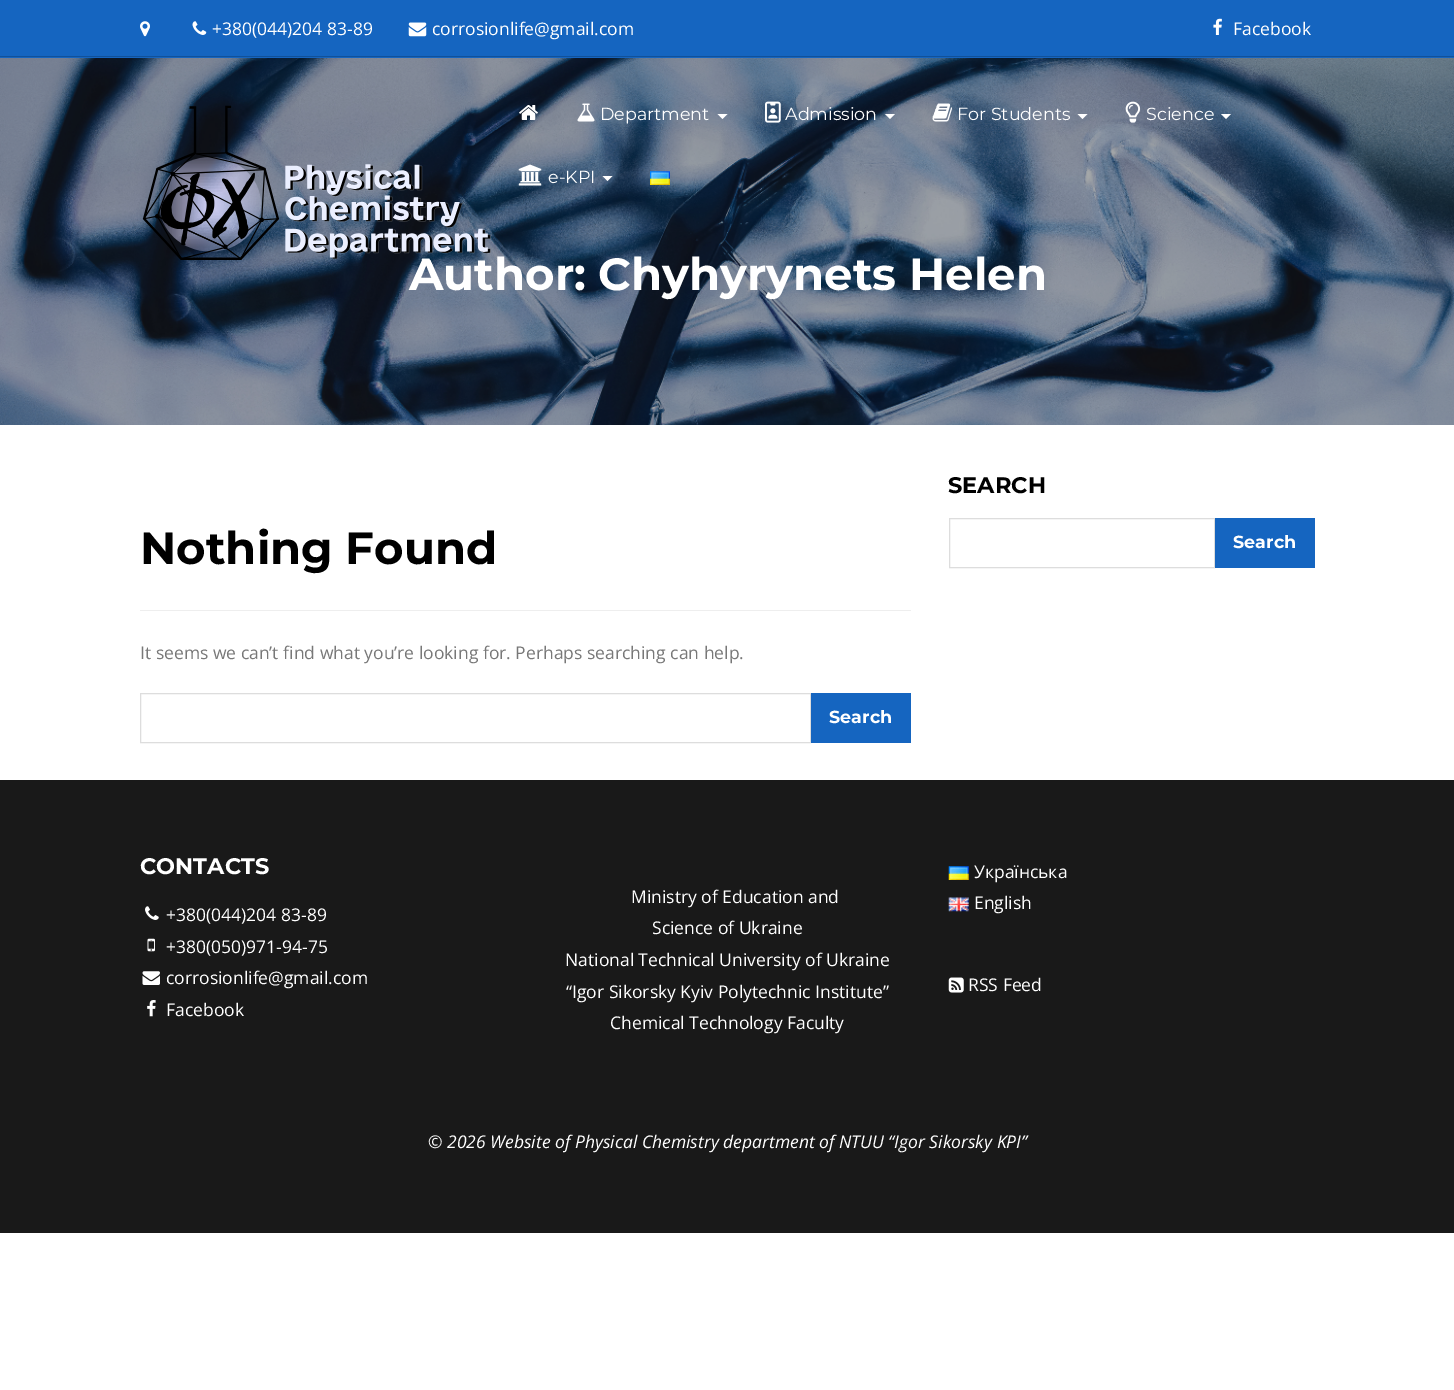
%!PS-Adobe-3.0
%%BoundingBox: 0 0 1454 1390
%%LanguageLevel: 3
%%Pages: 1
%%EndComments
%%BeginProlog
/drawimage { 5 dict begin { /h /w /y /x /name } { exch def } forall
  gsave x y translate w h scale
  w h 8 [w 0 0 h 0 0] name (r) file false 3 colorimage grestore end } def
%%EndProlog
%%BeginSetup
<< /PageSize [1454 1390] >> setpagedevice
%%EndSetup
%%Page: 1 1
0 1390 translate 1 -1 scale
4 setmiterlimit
1 setgray
0 0 1454 1390 rectfill
0.082 0.396 0.753 setrgbcolor
0 0 1454 58 rectfill
0.067 0.318 0.604 setrgbcolor
0 56 1454 1 rectfill
(images/1.raw) 140 21 10 16 drawimage
(images/2.raw) 192 21 15 14 drawimage
(images/3.raw) 408 22 19 15 drawimage
(images/4.raw) 1213 18 9 17 drawimage
(images/13.raw) 0 58 1454 367 drawimage
(images/6.raw) 519 105 19 15 drawimage
(images/7.raw) 577 103 18 19 drawimage
1 setgray
newpath 717.5 114 moveto 727.5 114 lineto 722.5 119 lineto closepath fill
(images/8.raw) 765 101 16 22 drawimage
newpath 885 114 moveto 895 114 lineto 890 119 lineto closepath fill
(images/9.raw) 932 103 20 19 drawimage
newpath 1077.5 114 moveto 1087.5 114 lineto 1082.5 119 lineto closepath fill
(images/10.raw) 1125 101 16 22 drawimage
newpath 1221 114 moveto 1231 114 lineto 1226 119 lineto closepath fill
(images/11.raw) 518 164 24 22 drawimage
newpath 602.5 176 moveto 612.5 176 lineto 607.5 181 lineto closepath fill
(images/12.raw) 650 171 20 14 drawimage
0.867 setgray
949.5 518.5 265 49 rectstroke
0.082 0.396 0.753 setrgbcolor
1215 518 100 50 rectfill
0.933 setgray
140 610 771 1 rectfill
0.867 setgray
140.5 693.5 670 49 rectstroke
0.082 0.396 0.753 setrgbcolor
811 693 100 50 rectfill
0.098 setgray
0 780 1454 453 rectfill
(images/14.raw) 145 906 14 14 drawimage
(images/15.raw) 147 938 8 14 drawimage
(images/16.raw) 142 971 18 14 drawimage
(images/17.raw) 147 1000 9 17 drawimage
(images/18.raw) 948 866 21 14 drawimage
(images/19.raw) 948 897 21 15 drawimage
(images/20.raw) 948 977 16 16 drawimage
/OpenSans-Regular [17.5 0 0 -17.5 0 0] selectfont
1 setgray
212 35 moveto (+380\(044\)204 83-89) show
432 35 moveto (corrosionlife@gmail.com) show
1233 35 moveto (Facebook) show
/Montserrat-Regular [17.5 0 0 -17.5 0 0] selectfont
600 120 moveto (Department) show
785 120 moveto (Admission) show
957 120 moveto (For Students) show
1146 120 moveto (Science) show
548 183 moveto (e-KPI) show
/Montserrat-Bold [45 0 0 -45 0 0] selectfont
409 290 moveto (Author: Chyhyrynets Helen) show
(images/5.raw) 142 105 349 155 drawimage
/Montserrat-Bold [22.5 0 0 -22.5 0 0] selectfont
0 setgray
948 493 moveto (SEARCH) show
/Montserrat-Bold [17.5 0 0 -17.5 0 0] selectfont
1 setgray
1233 548 moveto (Search) show
/Montserrat-Bold [45 0 0 -45 0 0] selectfont
0 setgray
140 564 moveto (Nothing Found) show
/OpenSans-Regular [17.5 0 0 -17.5 0 0] selectfont
0.471 setgray
140 659 moveto (It seems we can’t find what you’re looking for. Perhaps searching can help.) show
/Montserrat-Bold [17.5 0 0 -17.5 0 0] selectfont
1 setgray
829 723 moveto (Search) show
/Montserrat-Bold [22.5 0 0 -22.5 0 0] selectfont
140 874 moveto (CONTACTS) show
/OpenSans-Regular [17.5 0 0 -17.5 0 0] selectfont
166 921 moveto (+380\(044\)204 83-89) show
166 953 moveto (+380\(050\)971-94-75) show
166 984 moveto (corrosionlife@gmail.com) show
166 1016 moveto (Facebook) show
631 903 moveto (Ministry of Education and) show
652 934 moveto (Science of Ukraine) show
565 966 moveto (National Technical University of Ukraine) show
566 998 moveto (“Igor Sikorsky Kyiv Polytechnic Institute”) show
610 1029 moveto (Chemical Technology Faculty) show
974 878 moveto (Українська) show
974 909 moveto (English) show
968 991 moveto (RSS Feed) show
/OpenSans-Italic [17.5 0 0 -17.5 0 0] selectfont
428 1148 moveto (© 2026 Website of Physical Chemistry department of NTUU “Igor Sikorsky KPI”) show
showpage
%%EOF
